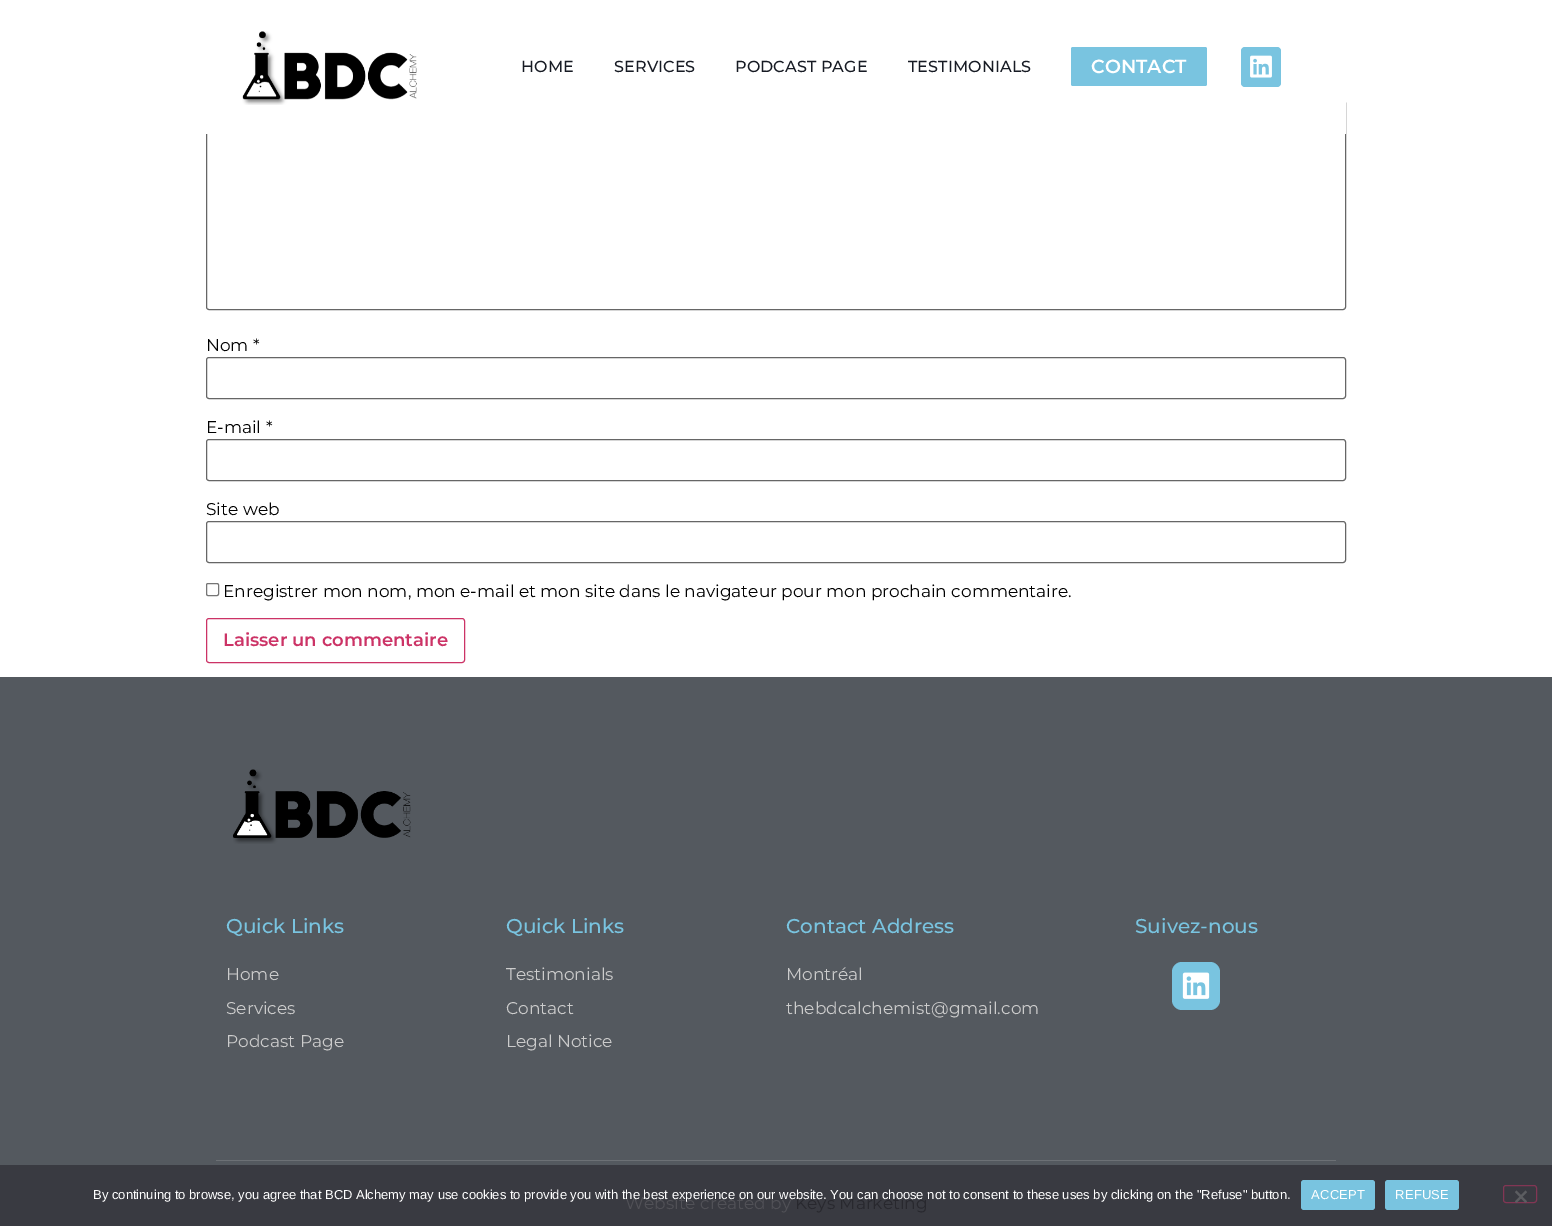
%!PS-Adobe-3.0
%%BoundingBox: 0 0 1552 1226
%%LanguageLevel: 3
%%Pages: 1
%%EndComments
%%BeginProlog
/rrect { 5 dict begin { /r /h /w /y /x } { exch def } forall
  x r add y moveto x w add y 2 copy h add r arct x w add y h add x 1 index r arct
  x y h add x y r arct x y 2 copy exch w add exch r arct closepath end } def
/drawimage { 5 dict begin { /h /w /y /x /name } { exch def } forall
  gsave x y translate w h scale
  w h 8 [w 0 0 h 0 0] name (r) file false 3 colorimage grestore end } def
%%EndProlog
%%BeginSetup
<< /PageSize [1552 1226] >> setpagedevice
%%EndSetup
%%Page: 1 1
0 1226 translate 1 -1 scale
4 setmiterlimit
1 setgray
0 0 1552 1226 rectfill
0.4 setgray
206.5 100.5 1139 209 2.5 rrect stroke
1 setgray
206 100 1140 34 rectfill
(images/1.raw) 242 31 175 74 drawimage
0.475 0.769 0.878 setrgbcolor
1071 47 136 39 2 rrect fill
1241 47 40 40 4 rrect fill
(images/2.raw) 1250 55 22 23 drawimage
0.4 setgray
206.5 357.5 1139 41 2.5 rrect stroke
206.5 439.5 1139 41 2.5 rrect stroke
206.5 521.5 1139 41 2.5 rrect stroke
0.463 setgray
206.5 583.5 12 12 1.5 rrect stroke
0.8 0.2 0.4 setrgbcolor
206.5 618.5 258 44 2.5 rrect stroke
0.329 0.349 0.373 setrgbcolor
0 677 1552 488 rectfill
0.224 0.227 0.255 setrgbcolor
0 1165 1552 61 rectfill
(images/3.raw) 233 769 178 75 drawimage
0.475 0.769 0.878 setrgbcolor
1172 962 48 48 10 rrect fill
(images/4.raw) 1182 972 28 27 drawimage
0.424 0.439 0.459 setrgbcolor
216 1160 1120 1 rectfill
0.475 0.769 0.878 setrgbcolor
1301 1180 74 30 3 rrect fill
1385 1180 74 30 3 rrect fill
0.51 0.212 0.329 setrgbcolor
1503.5 1185.5 33 17 2.5 rrect stroke
0.361 0.365 0.38 setrgbcolor
newpath 1525.5 1190.5 moveto 1527 1192 lineto 1516.5 1203 lineto 1515 1201.5 lineto closepath fill
newpath 1515 1192 moveto 1516.5 1190.5 lineto 1527 1201.5 lineto 1525.5 1203 lineto closepath fill
/Montserrat-Medium [16 0 0 -16 0 0] selectfont
0.09 0.106 0.141 setrgbcolor
521 72 moveto 0.1 0 (HOME) ashow
614 72 moveto 0.1 0 (SERVICES) ashow
735 72 moveto 0.1 0 (PODCAST PAGE) ashow
908 72 moveto 0.1 0 (TESTIMONIALS) ashow
/Montserrat-SemiBold [19 0 0 -19 0 0] selectfont
1 setgray
1091 73 moveto (CONTACT) show
/Montserrat-Regular [17 0 0 -17 0 0] selectfont
0 setgray
206 351 moveto (Nom *) show
206 433 moveto (E-mail *) show
206 515 moveto (Site web) show
223 597 moveto (Enregistrer mon nom, mon e-mail et mon site dans le navigateur pour mon prochain commentaire.) show
/Montserrat-SemiBold [18 0 0 -18 0 0] selectfont
0.8 0.2 0.4 setrgbcolor
223 646 moveto (Laisser un commentaire) show
/Montserrat-Medium [20 0 0 -20 0 0] selectfont
0.475 0.769 0.878 setrgbcolor
226 933 moveto (Quick Links) show
/Montserrat-Regular [17 0 0 -17 0 0] selectfont
0.8 setgray
226 980 moveto (Home) show
226 1014 moveto (Services) show
226 1047 moveto (Podcast Page) show
/Montserrat-Medium [20 0 0 -20 0 0] selectfont
0.475 0.769 0.878 setrgbcolor
506 933 moveto (Quick Links) show
/Montserrat-Regular [17 0 0 -17 0 0] selectfont
0.8 setgray
506 980 moveto (Testimonials) show
506 1014 moveto (Contact) show
506 1047 moveto (Legal Notice) show
/Montserrat-Medium [20 0 0 -20 0 0] selectfont
0.475 0.769 0.878 setrgbcolor
786 933 moveto (Contact Address) show
/Montserrat-Regular [17 0 0 -17 0 0] selectfont
0.8 setgray
786 980 moveto (Montréal) show
786 1014 moveto (thebdcalchemist@gmail.com) show
/Montserrat-Medium [20 0 0 -20 0 0] selectfont
0.475 0.769 0.878 setrgbcolor
1135 933 moveto (Suivez-nous) show
/Montserrat-Regular [17 0 0 -17 0 0] selectfont
0.318 0.318 0.341 setrgbcolor
625 1209 moveto (Website created by) show
0.157 0.157 0.18 setrgbcolor
795 1209 moveto (Keys Marketing) show
/LiberationSans-Regular [13 0 0 -13 0 0] selectfont
1 setgray
93 1199 moveto (By continuing to browse, you agree that BCD Alchemy may use cookies to provide you with the best experience on our website. You can choose not to consent to these uses by clicking on the "Refuse" button.) show
1311 1199 moveto 0.25 0 (ACCEPT) ashow
1395 1199 moveto 0.25 0 (REFUSE) ashow
showpage
%%EOF
